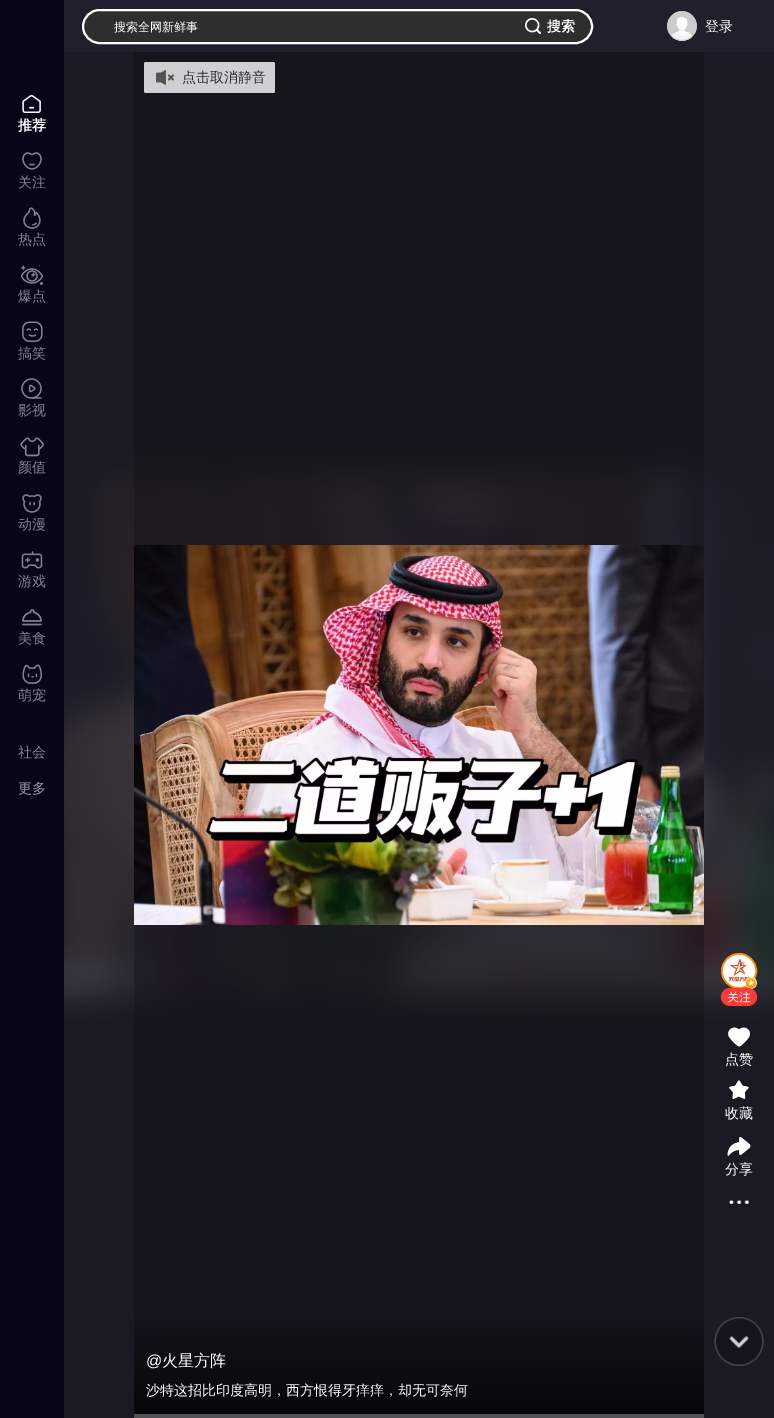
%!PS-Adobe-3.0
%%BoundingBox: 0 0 774 1418
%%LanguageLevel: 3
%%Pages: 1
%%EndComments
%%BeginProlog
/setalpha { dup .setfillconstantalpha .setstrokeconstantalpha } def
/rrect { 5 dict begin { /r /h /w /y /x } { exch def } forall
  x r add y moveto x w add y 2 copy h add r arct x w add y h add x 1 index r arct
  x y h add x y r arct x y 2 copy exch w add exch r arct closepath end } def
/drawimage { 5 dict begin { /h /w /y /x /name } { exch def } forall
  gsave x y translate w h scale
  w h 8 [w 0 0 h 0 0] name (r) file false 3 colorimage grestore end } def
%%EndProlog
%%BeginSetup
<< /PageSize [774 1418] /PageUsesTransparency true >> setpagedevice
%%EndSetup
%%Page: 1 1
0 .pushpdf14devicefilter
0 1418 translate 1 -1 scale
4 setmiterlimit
0.122 0.125 0.173 setrgbcolor
0 0 774 1418 rectfill
0.024 0.027 0.086 setrgbcolor
0 0 64 1418 rectfill
(images/1.raw) 22 94 19 19 drawimage
(images/2.raw) 22 152 20 18 drawimage
(images/3.raw) 23 207 18 22 drawimage
(images/4.raw) 20 265 24 20 drawimage
(images/5.raw) 22 321 21 21 drawimage
(images/6.raw) 21 378 21 21 drawimage
(images/7.raw) 20 437 24 20 drawimage
(images/8.raw) 22 494 20 19 drawimage
(images/9.raw) 21 551 22 18 drawimage
(images/10.raw) 22 609 20 17 drawimage
(images/11.raw) 22 664 20 20 drawimage
0.18 setgray
83 10 509 33 16.5 rrect gsave fill grestore
1 setgray
2 setlinewidth
stroke
(images/12.raw) 525 18 16 16 drawimage
(images/13.raw) 667 11 30 30 drawimage
0.098 0.102 0.137 setrgbcolor
64 52 710 1366 rectfill
(images/24.raw) 64 446 710 578 drawimage
0.4 setalpha
0.063 0.063 0.082 setrgbcolor
134 52 570 1256 rectfill
1 setalpha
(images/14.raw) 134 545 570 380 drawimage
0.318 0.318 0.325 setrgbcolor
134 1414 570 4 rectfill
0.816 0.816 0.824 setrgbcolor
144 62 131 31 2 rrect fill
(images/15.raw) 156 70 18 15 drawimage
gsave newpath 134 1308 moveto 704 1308 lineto 704 1414 lineto 134 1414 lineto closepath clip newpath
<< /ShadingType 2 /ColorSpace /DeviceRGB /Coords [419 1308 419 1418] /Extend [true true] /Function << /FunctionType 2 /Domain [0 1] /C0 [0.082 0.086 0.118] /C1 [0.024 0.027 0.035] /N 1 >> >> shfill grestore
(images/16.raw) 723 955 32 32 drawimage
1 0.565 0.051 setrgbcolor
newpath 739 971 17 0 360 arc closepath stroke
1 setgray
newpath 739 971 15 0 360 arc closepath stroke
(images/17.raw) 745 977 12 12 drawimage
(images/18.raw) 720 987 38 20 drawimage
(images/19.raw) 728 1027 23 20 drawimage
(images/20.raw) 728 1079 22 21 drawimage
(images/21.raw) 727 1136 24 20 drawimage
(images/22.raw) 729 1200 20 5 drawimage
(images/23.raw) 714 1317 50 49 drawimage
/WenQuanYiZenHei-Bold [14 0 0 -14 0 0] selectfont
18 130 moveto (推荐) show
/WenQuanYiZenHei-Medium [14 0 0 -14 0 0] selectfont
0.514 0.514 0.545 setrgbcolor
18 187 moveto (关注) show
18 244 moveto (热点) show
18 301 moveto (爆点) show
18 358 moveto (搞笑) show
18 415 moveto (影视) show
18 472 moveto (颜值) show
18 529 moveto (动漫) show
18 586 moveto (游戏) show
18 643 moveto (美食) show
18 700 moveto (萌宠) show
18 757 moveto (社会) show
0.608 0.612 0.635 setrgbcolor
18 793 moveto (更多) show
/WenQuanYiZenHei-Medium [12 0 0 -12 0 0] selectfont
1 setgray
114 31 moveto (搜索全网新鲜事) show
/WenQuanYiZenHei-Bold [14 0 0 -14 0 0] selectfont
547 31 moveto (搜索) show
/WenQuanYiZenHei-Medium [14 0 0 -14 0 0] selectfont
705 31 moveto (登录) show
0.176 0.176 0.184 setrgbcolor
182 82 moveto (点击取消静音) show
/LiberationSans-Regular [16 0 0 -16 0 0] selectfont
1 setgray
146 1366 moveto (@) show
/WenQuanYiZenHei-Medium [16 0 0 -16 0 0] selectfont
162 1366 moveto (火星方阵) show
/WenQuanYiZenHei-Medium [14 0 0 -14 0 0] selectfont
146 1395 moveto (沙特这招比印度高明，西方恨得牙痒痒，却无可奈何) show
725 1064 moveto (点赞) show
725 1118 moveto (收藏) show
725 1174 moveto (分享) show
.poppdf14devicefilter showpage
%%EOF
